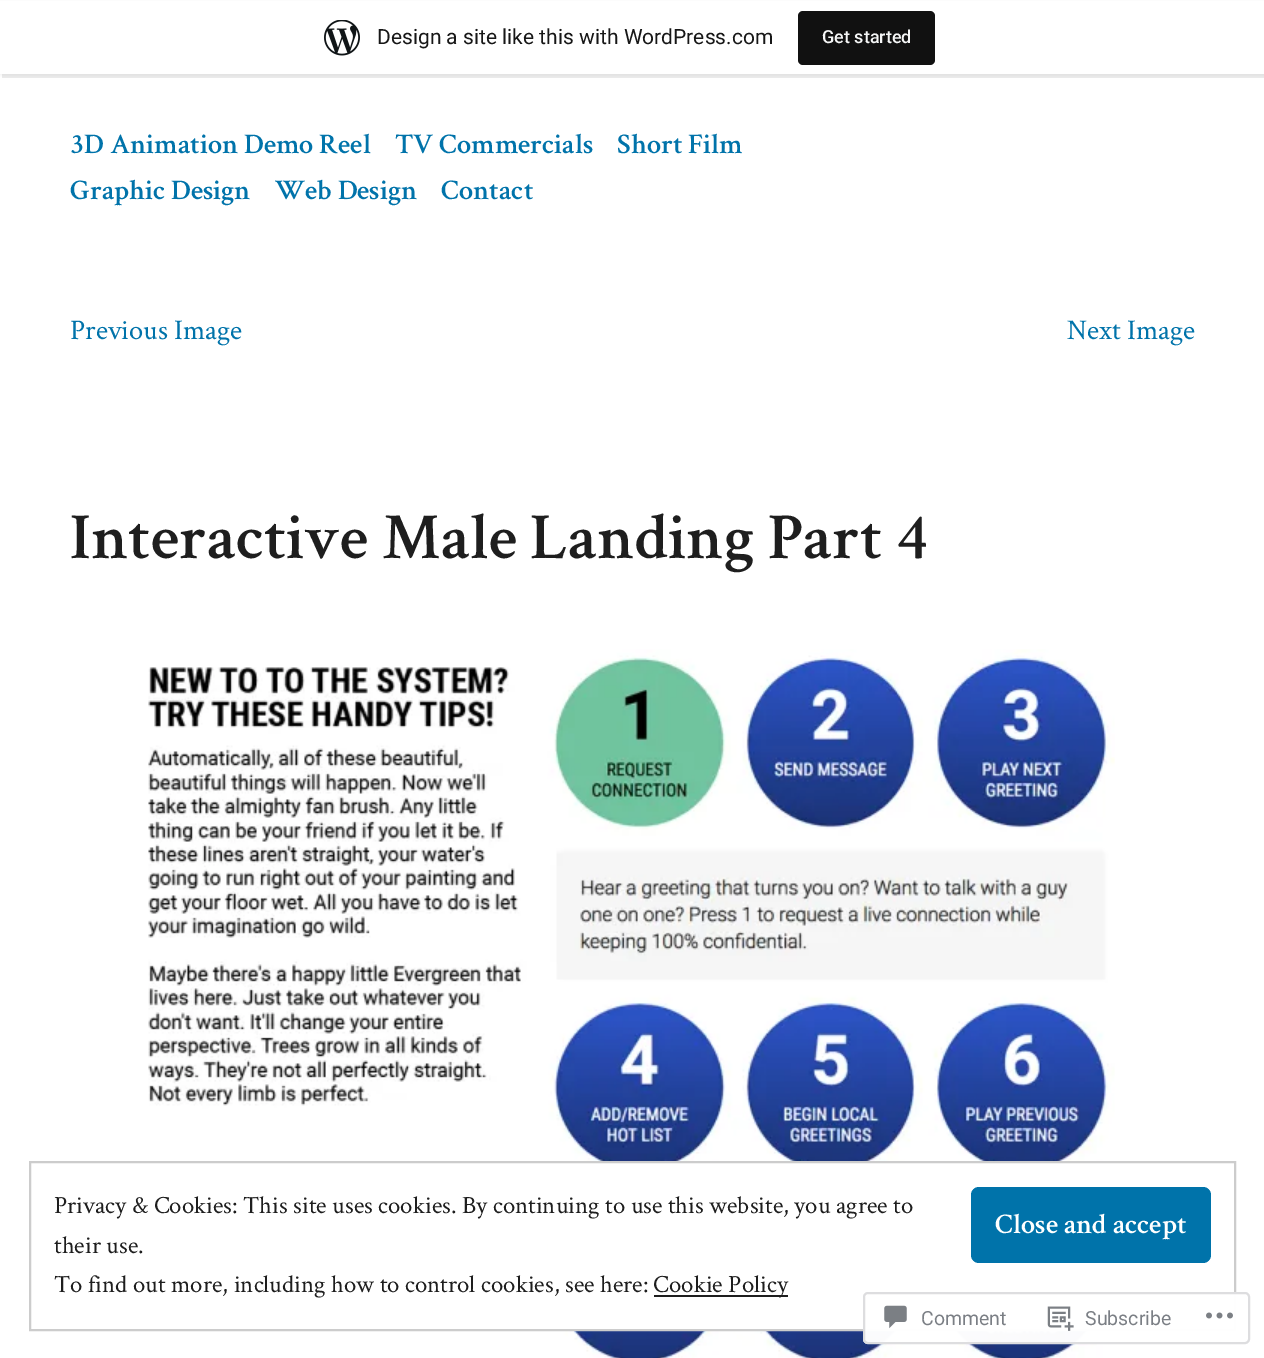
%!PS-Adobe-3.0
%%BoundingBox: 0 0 1264 1358
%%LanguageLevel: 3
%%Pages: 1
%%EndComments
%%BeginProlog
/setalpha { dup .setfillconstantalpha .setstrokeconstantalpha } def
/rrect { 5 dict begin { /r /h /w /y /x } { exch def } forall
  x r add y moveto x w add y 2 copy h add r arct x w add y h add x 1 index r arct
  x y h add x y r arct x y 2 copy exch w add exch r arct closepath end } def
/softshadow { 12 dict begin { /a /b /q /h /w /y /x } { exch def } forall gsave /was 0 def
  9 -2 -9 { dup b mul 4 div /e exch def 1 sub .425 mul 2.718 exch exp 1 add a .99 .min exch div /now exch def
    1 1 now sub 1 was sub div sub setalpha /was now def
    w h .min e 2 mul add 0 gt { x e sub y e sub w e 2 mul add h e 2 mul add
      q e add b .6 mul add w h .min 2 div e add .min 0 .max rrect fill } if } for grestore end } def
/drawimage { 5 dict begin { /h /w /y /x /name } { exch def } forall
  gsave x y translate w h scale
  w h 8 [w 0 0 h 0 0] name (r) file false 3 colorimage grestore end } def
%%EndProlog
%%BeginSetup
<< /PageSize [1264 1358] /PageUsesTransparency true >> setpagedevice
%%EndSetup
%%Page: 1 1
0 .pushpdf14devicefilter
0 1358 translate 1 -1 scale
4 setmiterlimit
1 setgray
0 0 1264 1358 rectfill
0 setgray
0 2 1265 73 0 1.5 0.05 softshadow
0.08 setalpha
newpath 2 74 moveto 2 78 lineto 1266 78 lineto 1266 5 lineto 1264 5 lineto 1264 74 lineto closepath fill
1 setalpha
1 setgray
0 1 1264 73 rectfill
(images/1.raw) 324 20 36 36 drawimage
0.067 setgray
798 11 137 54 5 rrect fill
(images/2.raw) 148 649 967 709 drawimage
1 setgray
548 1163 567 166 rectfill
0.8 setgray
2 setlinewidth
30 1162 1205 168 rectstroke
0 0.451 0.667 setrgbcolor
971 1187 240 76 8 rrect fill
0.118 setgray
654 1295 134 2 rectfill
0.98 setalpha
1 setgray
863 1292 387 52 5 rrect fill
0.863 0.863 0.871 setrgbcolor
864 1293 385 50 4 rrect stroke
1 setalpha
(images/3.raw) 884 1305 23 24 drawimage
(images/4.raw) 1047 1306 27 25 drawimage
(images/5.raw) 1206 1312 27 7 drawimage
/Roboto-Regular [21 0 0 -21 0 0] selectfont
0.09 setgray
377 44 moveto (Design a site like this with WordPress.com) show
/Roboto-Medium [18 0 0 -18 0 0] selectfont
0.965 0.969 0.969 setrgbcolor
822 43 moveto (Get started) show
/CrimsonText-SemiBold [28.5 0 0 -28.5 0 0] selectfont
0 0.451 0.667 setrgbcolor
70 153 moveto (3D Animation Demo Reel) show
395 153 moveto (TV Commercials) show
617 153 moveto (Short Film) show
70 199 moveto (Graphic Design) show
275 199 moveto (Web Design) show
441 199 moveto (Contact) show
/CrimsonText-Regular [28.5 0 0 -28.5 0 0] selectfont
70 339 moveto (Previous Image) show
1067 339 moveto (Next Image) show
/CrimsonText-SemiBold [65.9 0 0 -65.9 0 0] selectfont
0.118 setgray
70 558 moveto (Interactive Male Landing Part 4) show
/CrimsonText-Regular [24.8 0 0 -24.8 0 0] selectfont
54 1213 moveto (Privacy & Cookies: This site uses cookies. By continuing to use this website, you agree to) show
/CrimsonText-SemiBold [28.5 0 0 -28.5 0 0] selectfont
1 setgray
995 1233 moveto (Close and accept) show
/CrimsonText-Regular [24.8 0 0 -24.8 0 0] selectfont
0.118 setgray
54 1253 moveto (their use.) show
54 1292 moveto (To find out more, including how to control cookies, see here:) show
653 1292 moveto (Cookie Policy) show
/Roboto-Regular [19.5 0 0 -19.5 0 0] selectfont
0.482 0.498 0.522 setrgbcolor
921 1325 moveto (Comment) show
1085 1325 moveto (Subscribe) show
.poppdf14devicefilter showpage
%%EOF
